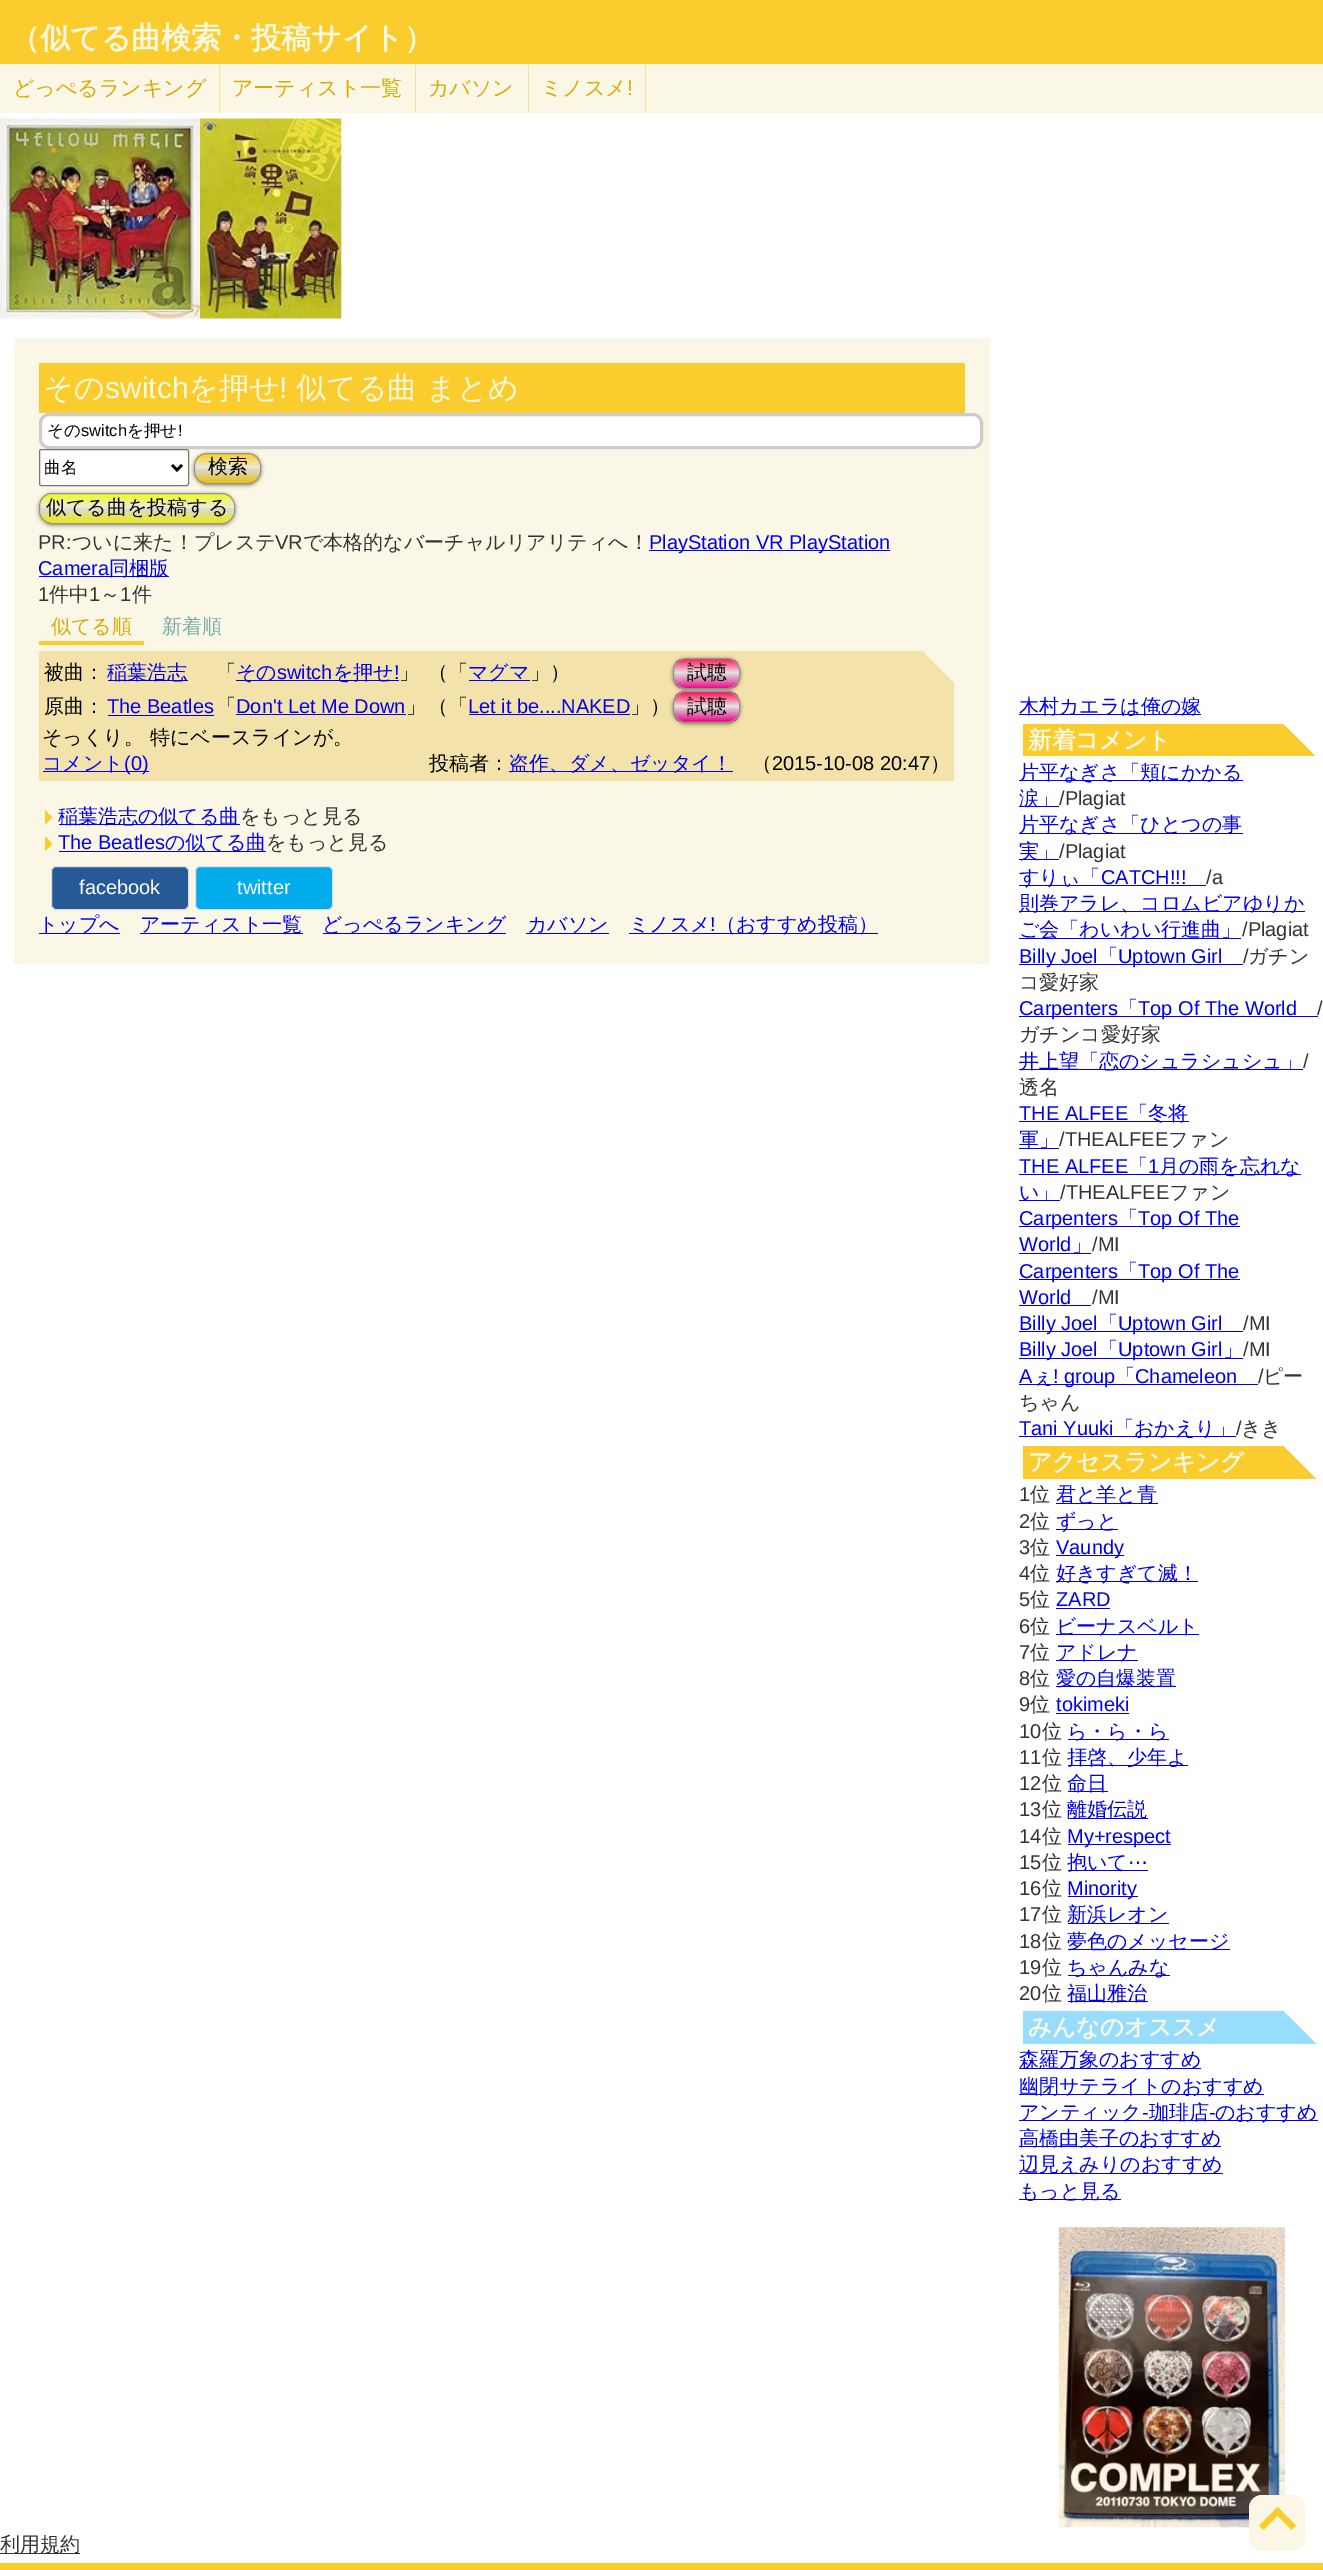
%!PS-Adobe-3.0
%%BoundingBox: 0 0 1323 2570
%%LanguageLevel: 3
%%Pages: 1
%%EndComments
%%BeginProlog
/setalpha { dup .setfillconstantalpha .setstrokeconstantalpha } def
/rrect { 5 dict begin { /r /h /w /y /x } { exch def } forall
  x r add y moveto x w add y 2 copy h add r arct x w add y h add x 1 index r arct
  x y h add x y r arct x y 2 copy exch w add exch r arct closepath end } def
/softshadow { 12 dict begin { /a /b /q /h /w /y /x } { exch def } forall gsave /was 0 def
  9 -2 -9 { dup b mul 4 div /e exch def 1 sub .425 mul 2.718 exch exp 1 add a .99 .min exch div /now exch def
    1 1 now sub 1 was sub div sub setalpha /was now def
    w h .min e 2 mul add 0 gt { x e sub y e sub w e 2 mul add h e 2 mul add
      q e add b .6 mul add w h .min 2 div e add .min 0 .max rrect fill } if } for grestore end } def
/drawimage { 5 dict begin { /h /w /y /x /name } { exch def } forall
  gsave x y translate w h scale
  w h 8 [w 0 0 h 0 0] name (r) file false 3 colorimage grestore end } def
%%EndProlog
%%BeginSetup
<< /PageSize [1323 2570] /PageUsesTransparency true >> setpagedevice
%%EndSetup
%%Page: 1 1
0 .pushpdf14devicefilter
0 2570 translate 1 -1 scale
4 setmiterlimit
1 setgray
0 0 1323 2570 rectfill
0.98 0.8 0.18 setrgbcolor
0 0 1323 64 rectfill
0.98 0.969 0.906 setrgbcolor
0 64 1323 49 rectfill
0.953 0.886 0.663 setrgbcolor
219 64 1 49 rectfill
415 64 1 49 rectfill
528 64 1 49 rectfill
645 64 1 49 rectfill
(images/1.raw) 0 118 200 201 drawimage
(images/2.raw) 200 118 142 201 drawimage
0.98 0.969 0.906 setrgbcolor
14 338 976 626 rectfill
0.98 0.8 0.18 setrgbcolor
39 363 926 50 rectfill
1 setgray
40.5 414.5 941 33 8.5 rrect gsave fill grestore
0.8 setgray
3 setlinewidth
stroke
1 setgray
39.5 449.5 149 36 2 rrect gsave fill grestore
0.463 setgray
1 setlinewidth
stroke
0 setgray
2.5 setlinewidth
newpath 172 465 moveto 177 470 lineto 182 465 lineto stroke
194 454 67 31 13 2 0.5 softshadow
gsave
194 453 67 31 13 rrect clip newpath
gsave newpath 194 454 moveto 261 454 lineto 261 483 lineto 194 483 lineto closepath clip newpath
<< /ShadingType 2 /ColorSpace /DeviceRGB /Coords [195 454 195 483] /Extend [true true] /Function << /FunctionType 3 /Domain [0 1] /Functions [<< /FunctionType 2 /Domain [0 1] /C0 [0.98 0.808 0.118] /C1 [0.922 0.922 0.922] /N 1 >> << /FunctionType 2 /Domain [0 1] /C0 [0.859 0.859 0.859] /C1 [0.922 0.745 0.047] /N 1 >>] /Bounds [0.5] /Encode [0 1 0 1] >> >> shfill grestore
grestore
0.58 setgray
1 setlinewidth
194.5 453.5 66 30 12.5 rrect stroke
0 setgray
39 494 196 31 13 2 0.5 softshadow
gsave
39 493 196 31 13 rrect clip newpath
gsave newpath 39 494 moveto 235 494 lineto 235 523 lineto 39 523 lineto closepath clip newpath
<< /ShadingType 2 /ColorSpace /DeviceRGB /Coords [40 494 40 523] /Extend [true true] /Function << /FunctionType 3 /Domain [0 1] /Functions [<< /FunctionType 2 /Domain [0 1] /C0 [0.953 0.98 0.118] /C1 [0.922 0.922 0.922] /N 1 >> << /FunctionType 2 /Domain [0 1] /C0 [0.859 0.859 0.859] /C1 [0.922 0.922 0.047] /N 1 >>] /Bounds [0.5] /Encode [0 1 0 1] >> >> shfill grestore
grestore
0.58 setgray
39.5 493.5 195 30 12.5 rrect stroke
0 0 0.933 setrgbcolor
649 550 241 1 rectfill
39 576 130 1 rectfill
0.98 0.8 0.18 setrgbcolor
39 641 105 4 rectfill
gsave newpath 39 651 moveto 954 651 lineto 954 781 lineto 39 781 lineto closepath clip newpath
<< /ShadingType 2 /ColorSpace /DeviceRGB /Coords [758 455 235 978] /Extend [true true] /Function << /FunctionType 3 /Domain [0 1] /Functions [<< /FunctionType 2 /Domain [0 1] /C0 [0.98 0.969 0.906] /C1 [0.98 0.969 0.906] /N 1 >> << /FunctionType 2 /Domain [0 1] /C0 [0.953 0.886 0.663] /C1 [0.953 0.886 0.663] /N 1 >>] /Bounds [0.03] /Encode [0 1 0 1] >> >> shfill grestore
0 0 0.933 setrgbcolor
108 680 80 1 rectfill
236 680 163 1 rectfill
469 680 61 1 rectfill
0 setgray
673 659 67 31 13 2 0.5 softshadow
gsave
673 658 67 31 13 rrect clip newpath
gsave newpath 673 659 moveto 740 659 lineto 740 688 lineto 673 688 lineto closepath clip newpath
<< /ShadingType 2 /ColorSpace /DeviceRGB /Coords [674 659 674 688] /Extend [true true] /Function << /FunctionType 3 /Domain [0 1] /Functions [<< /FunctionType 2 /Domain [0 1] /C0 [0.98 0.118 0.365] /C1 [0.922 0.922 0.922] /N 1 >> << /FunctionType 2 /Domain [0 1] /C0 [0.859 0.859 0.859] /C1 [0.922 0.047 0.541] /N 1 >>] /Bounds [0.5] /Encode [0 1 0 1] >> >> shfill grestore
grestore
0.58 setgray
673.5 658.5 66 30 12.5 rrect stroke
0 0 0.933 setrgbcolor
108 715 106 1 rectfill
236 714 170 1 rectfill
469 714 161 1 rectfill
0 setgray
673 693 67 31 13 2 0.5 softshadow
gsave
673 691 67 32 13 rrect clip newpath
gsave newpath 673 691 moveto 740 691 lineto 740 693 lineto 673 693 lineto closepath clip newpath
<< /ShadingType 2 /ColorSpace /DeviceRGB /Coords [674 664 674 693] /Extend [true true] /Function << /FunctionType 3 /Domain [0 1] /Functions [<< /FunctionType 2 /Domain [0 1] /C0 [0.98 0.118 0.365] /C1 [0.922 0.922 0.922] /N 1 >> << /FunctionType 2 /Domain [0 1] /C0 [0.859 0.859 0.859] /C1 [0.922 0.047 0.541] /N 1 >>] /Bounds [0.5] /Encode [0 1 0 1] >> >> shfill grestore
gsave newpath 673 693 moveto 740 693 lineto 740 721 lineto 673 721 lineto closepath clip newpath
<< /ShadingType 2 /ColorSpace /DeviceRGB /Coords [674 693 674 721] /Extend [true true] /Function << /FunctionType 3 /Domain [0 1] /Functions [<< /FunctionType 2 /Domain [0 1] /C0 [0.98 0.118 0.365] /C1 [0.922 0.922 0.922] /N 1 >> << /FunctionType 2 /Domain [0 1] /C0 [0.859 0.859 0.859] /C1 [0.922 0.047 0.541] /N 1 >>] /Bounds [0.5] /Encode [0 1 0 1] >> >> shfill grestore
gsave newpath 673 721 moveto 740 721 lineto 740 723 lineto 673 723 lineto closepath clip newpath
<< /ShadingType 2 /ColorSpace /DeviceRGB /Coords [674 721 674 750] /Extend [true true] /Function << /FunctionType 3 /Domain [0 1] /Functions [<< /FunctionType 2 /Domain [0 1] /C0 [0.98 0.118 0.365] /C1 [0.922 0.922 0.922] /N 1 >> << /FunctionType 2 /Domain [0 1] /C0 [0.859 0.859 0.859] /C1 [0.922 0.047 0.541] /N 1 >>] /Bounds [0.5] /Encode [0 1 0 1] >> >> shfill grestore
grestore
0.58 setgray
673.5 691.5 66 31 12.5 rrect stroke
0 0 1 setrgbcolor
43 771 106 1 rectfill
0 0 0.933 setrgbcolor
509 771 224 1 rectfill
0.98 0.8 0.18 setrgbcolor
newpath 45 825 moveto 45 810 lineto 52.5 817.5 lineto closepath fill
0 0 0.933 setrgbcolor
59 824 181 1 rectfill
0.98 0.8 0.18 setrgbcolor
newpath 45 851 moveto 45 836 lineto 52.5 844 lineto closepath fill
0 0 0.933 setrgbcolor
59 851 207 1 rectfill
0.149 0.353 0.588 setrgbcolor
51.5 866.5 137 43 4.5 rrect gsave fill grestore
0.867 setgray
stroke
0 0.675 0.925 setrgbcolor
195.5 866.5 137 43 4.5 rrect gsave fill grestore
0.867 setgray
stroke
0 0 0.933 setrgbcolor
39 933 81 1 rectfill
140 933 163 1 rectfill
323 933 183 1 rectfill
526 933 83 1 rectfill
629 933 249 1 rectfill
1019 714 182 1 rectfill
gsave newpath 1023 724 moveto 1315 724 lineto 1315 756 lineto 1023 756 lineto closepath clip newpath
<< /ShadingType 2 /ColorSpace /DeviceRGB /Coords [1254 658 1089 823] /Extend [true true] /Function << /FunctionType 3 /Domain [0 1] /Functions [<< /FunctionType 2 /Domain [0 1] /C0 [1 1 1] /C1 [1 1 1] /N 1 >> << /FunctionType 2 /Domain [0 1] /C0 [0.98 0.8 0.18] /C1 [0.98 0.8 0.18] /N 1 >>] /Bounds [0.11] /Encode [0 1 0 1] >> >> shfill grestore
1019 780 224 1 rectfill
1019 806 40 1 rectfill
1019 833 224 1 rectfill
1019 859 40 1 rectfill
1019 885 187 1 rectfill
1019 911 286 1 rectfill
1019 938 222 1 rectfill
1019 964 224 1 rectfill
1019 1016 299 1 rectfill
1019 1069 284 1 rectfill
1019 1121 170 1 rectfill
1019 1148 40 1 rectfill
1019 1174 282 1 rectfill
1019 1200 41 1 rectfill
1019 1226 221 1 rectfill
1019 1253 72 1 rectfill
1019 1279 221 1 rectfill
1019 1305 72 1 rectfill
1019 1331 224 1 rectfill
1019 1358 224 1 rectfill
1019 1384 239 1 rectfill
1019 1436 217 1 rectfill
gsave newpath 1023 1446 moveto 1316 1446 lineto 1316 1479 lineto 1023 1479 lineto closepath clip newpath
<< /ShadingType 2 /ColorSpace /DeviceRGB /Coords [1254 1380 1089 1545] /Extend [true true] /Function << /FunctionType 3 /Domain [0 1] /Functions [<< /FunctionType 2 /Domain [0 1] /C0 [1 1 1] /C1 [1 1 1] /N 1 >> << /FunctionType 2 /Domain [0 1] /C0 [0.98 0.8 0.18] /C1 [0.98 0.8 0.18] /N 1 >>] /Bounds [0.11] /Encode [0 1 0 1] >> >> shfill grestore
1056 1503 102 1 rectfill
1056 1529 62 1 rectfill
1056 1555 68 1 rectfill
1056 1581 142 1 rectfill
1056 1608 54 1 rectfill
1056 1634 143 1 rectfill
1056 1660 82 1 rectfill
1056 1686 120 1 rectfill
1056 1713 73 1 rectfill
1068 1739 101 1 rectfill
1068 1765 120 1 rectfill
1068 1791 40 1 rectfill
1068 1818 80 1 rectfill
1068 1844 103 1 rectfill
1068 1870 80 1 rectfill
1068 1896 70 1 rectfill
1068 1923 101 1 rectfill
1068 1949 162 1 rectfill
1068 1975 102 1 rectfill
1068 2001 80 1 rectfill
gsave newpath 1023 2011 moveto 1316 2011 lineto 1316 2044 lineto 1023 2044 lineto closepath clip newpath
<< /ShadingType 2 /ColorSpace /DeviceRGB /Coords [1254 1945 1089 2110] /Extend [true true] /Function << /FunctionType 3 /Domain [0 1] /Functions [<< /FunctionType 2 /Domain [0 1] /C0 [1 1 1] /C1 [1 1 1] /N 1 >> << /FunctionType 2 /Domain [0 1] /C0 [0.596 0.863 0.996] /C1 [0.596 0.863 0.996] /N 1 >>] /Bounds [0.11] /Encode [0 1 0 1] >> >> shfill grestore
1019 2068 182 1 rectfill
1019 2094 245 1 rectfill
1019 2120 299 1 rectfill
1019 2146 202 1 rectfill
1019 2173 204 1 rectfill
1019 2199 102 1 rectfill
(images/3.raw) 1058 2227 227 301 drawimage
0.98 0.8 0.18 setrgbcolor
0 2563 1323 7 rectfill
0.98 0.969 0.906 setrgbcolor
1249 2495 56 56 13 rrect fill
0.98 0.8 0.18 setrgbcolor
newpath 1259 2525.5 moveto 1277.5 2507 lineto 1282 2511.5 lineto 1263.5 2530 lineto closepath fill
newpath 1273 2511.5 moveto 1277.5 2507 lineto 1296 2525.5 lineto 1291.5 2530 lineto closepath fill
0.2 setgray
0 2553 80 1 rectfill
/WenQuanYiZenHei-Bold [30 0 0 -30 0 0] selectfont
0.969 0.973 0.878 setrgbcolor
10 48 moveto (（似てる曲検索・投稿サイト）) show
/WenQuanYiZenHei-Medium [21 0 0 -21 0 0] selectfont
0.859 0.663 0.004 setrgbcolor
13 95 moveto (どっぺるランキング) show
232 95 moveto (アーティスト一覧) show
428 95 moveto (カバソン) show
541 95 moveto (ミノスメ) show
/LiberationSans-Regular [21 0 0 -21 0 0] selectfont
627 95 moveto (!) show
/WenQuanYiZenHei-Medium [30 0 0 -30 0 0] selectfont
0.969 0.973 0.878 setrgbcolor
43 398 moveto (その) show
/LiberationSans-Regular [30 0 0 -30 0 0] selectfont
105 398 moveto (switch) show
/WenQuanYiZenHei-Medium [30 0 0 -30 0 0] selectfont
188 398 moveto (を押せ) show
/LiberationSans-Regular [30 0 0 -30 0 0] selectfont
279 398 moveto (!) show
/WenQuanYiZenHei-Medium [30 0 0 -30 0 0] selectfont
296 398 moveto (似てる曲 まとめ) show
/WenQuanYiZenHei-Medium [16.5 0 0 -16.5 0 0] selectfont
0 setgray
47 436 moveto (その) show
/LiberationSans-Regular [16.5 0 0 -16.5 0 0] selectfont
81 436 moveto (switch) show
/WenQuanYiZenHei-Medium [16.5 0 0 -16.5 0 0] selectfont
127 436 moveto (を押せ) show
/LiberationSans-Regular [16.5 0 0 -16.5 0 0] selectfont
178 436 moveto (!) show
/WenQuanYiZenHei-Medium [16.5 0 0 -16.5 0 0] selectfont
44 473 moveto (曲名) show
/WenQuanYiZenHei-Medium [20 0 0 -20 0 0] selectfont
208 473 moveto (検索) show
46 514 moveto (似てる曲を投稿する) show
/LiberationSans-Regular [20 0 0 -20 0 0] selectfont
0.2 setgray
38 549 moveto (PR:) show
/WenQuanYiZenHei-Medium [20 0 0 -20 0 0] selectfont
72 549 moveto (ついに来た！プレステ) show
/LiberationSans-Regular [20 0 0 -20 0 0] selectfont
275 549 moveto (VR) show
/WenQuanYiZenHei-Medium [20 0 0 -20 0 0] selectfont
303 549 moveto (で本格的なバーチャルリアリティへ！) show
/LiberationSans-Regular [20 0 0 -20 0 0] selectfont
0 0 0.933 setrgbcolor
649 549 moveto (PlayStation VR PlayStation) show
38 575 moveto (Camera) show
/WenQuanYiZenHei-Medium [20 0 0 -20 0 0] selectfont
109 575 moveto (同梱版) show
/LiberationSans-Regular [20 0 0 -20 0 0] selectfont
0.2 setgray
38 601 moveto (1) show
/WenQuanYiZenHei-Medium [20 0 0 -20 0 0] selectfont
49 601 moveto (件中) show
/LiberationSans-Regular [20 0 0 -20 0 0] selectfont
89 601 moveto (1) show
/WenQuanYiZenHei-Medium [20 0 0 -20 0 0] selectfont
100 601 moveto (～) show
/LiberationSans-Regular [20 0 0 -20 0 0] selectfont
120 601 moveto (1) show
/WenQuanYiZenHei-Medium [20 0 0 -20 0 0] selectfont
132 601 moveto (件) show
0.859 0.663 0.004 setrgbcolor
51 633 moveto (似てる順) show
0.467 0.667 0.667 setrgbcolor
162 633 moveto (新着順) show
0 setgray
44 679 moveto (被曲：) show
0 0 0.933 setrgbcolor
107 679 moveto (稲葉浩志) show
0 setgray
216 679 moveto (「) show
0 0 0.933 setrgbcolor
236 679 moveto (その) show
/LiberationSans-Regular [20 0 0 -20 0 0] selectfont
277 679 moveto (switch) show
/WenQuanYiZenHei-Medium [20 0 0 -20 0 0] selectfont
333 679 moveto (を押せ) show
/LiberationSans-Regular [20 0 0 -20 0 0] selectfont
394 679 moveto (!) show
/WenQuanYiZenHei-Medium [20 0 0 -20 0 0] selectfont
0 setgray
399 679 moveto (」) show
428 679 moveto (（「) show
0 0 0.933 setrgbcolor
468 679 moveto (マグマ) show
0 setgray
530 679 moveto (」）) show
687 679 moveto (試聴) show
44 713 moveto (原曲：) show
/LiberationSans-Regular [20 0 0 -20 0 0] selectfont
0 0 0.933 setrgbcolor
107 713 moveto (The Beatles) show
/WenQuanYiZenHei-Medium [20 0 0 -20 0 0] selectfont
0 setgray
216 713 moveto (「) show
/LiberationSans-Regular [20 0 0 -20 0 0] selectfont
0 0 0.933 setrgbcolor
236 713 moveto (Don't Let Me Down) show
/WenQuanYiZenHei-Medium [20 0 0 -20 0 0] selectfont
0 setgray
406 713 moveto (」) show
428 713 moveto (（「) show
/LiberationSans-Regular [20 0 0 -20 0 0] selectfont
0 0 0.933 setrgbcolor
468 713 moveto (Let it be....NAKED) show
/WenQuanYiZenHei-Medium [20 0 0 -20 0 0] selectfont
0 setgray
630 713 moveto (」）) show
687 713 moveto (試聴) show
42 744 moveto (そっくり。 特にベースラインが。) show
0 0 1 setrgbcolor
42 770 moveto (コメント) show
/LiberationSans-Regular [20 0 0 -20 0 0] selectfont
124 770 moveto (\(0\)) show
/WenQuanYiZenHei-Medium [20 0 0 -20 0 0] selectfont
0 setgray
429 770 moveto (投稿者：) show
0 0 0.933 setrgbcolor
509 770 moveto (盗作、ダメ、ゼッタイ！) show
0 setgray
752 770 moveto (（) show
/LiberationSans-Regular [20 0 0 -20 0 0] selectfont
772 770 moveto (2015-10-08 20:47) show
/WenQuanYiZenHei-Medium [20 0 0 -20 0 0] selectfont
930 770 moveto (）) show
0 0 0.933 setrgbcolor
58 823 moveto (稲葉浩志の似てる曲) show
0.2 setgray
240 823 moveto (をもっと見る) show
/LiberationSans-Regular [20 0 0 -20 0 0] selectfont
0 0 0.933 setrgbcolor
58 849 moveto (The Beatles) show
/WenQuanYiZenHei-Medium [20 0 0 -20 0 0] selectfont
165 849 moveto (の似てる曲) show
0.2 setgray
266 849 moveto (をもっと見る) show
/LiberationSans-Regular [20 0 0 -20 0 0] selectfont
1 setgray
79 894 moveto (facebook) show
237 894 moveto (twitter) show
/WenQuanYiZenHei-Medium [20 0 0 -20 0 0] selectfont
0 0 0.933 setrgbcolor
38 931 moveto (トップへ) show
140 931 moveto (アーティスト一覧) show
322 931 moveto (どっぺるランキング) show
527 931 moveto (カバソン) show
629 931 moveto (ミノスメ) show
/LiberationSans-Regular [20 0 0 -20 0 0] selectfont
710 931 moveto (!) show
/WenQuanYiZenHei-Medium [20 0 0 -20 0 0] selectfont
716 931 moveto (（おすすめ投稿）) show
1019 713 moveto (木村カエラは俺の嫁) show
/WenQuanYiZenHei-Bold [23.5 0 0 -23.5 0 0] selectfont
0.969 0.973 0.878 setrgbcolor
1028 748 moveto (新着コメント) show
/WenQuanYiZenHei-Medium [20 0 0 -20 0 0] selectfont
0 0 0.933 setrgbcolor
1019 779 moveto (片平なぎさ「頬にかかる) show
1019 805 moveto (涙」) show
/LiberationSans-Regular [20 0 0 -20 0 0] selectfont
0.2 setgray
1059 805 moveto (/Plagiat) show
/WenQuanYiZenHei-Medium [20 0 0 -20 0 0] selectfont
0 0 0.933 setrgbcolor
1019 831 moveto (片平なぎさ「ひとつの事) show
1019 858 moveto (実」) show
/LiberationSans-Regular [20 0 0 -20 0 0] selectfont
0.2 setgray
1059 858 moveto (/Plagiat) show
/WenQuanYiZenHei-Medium [20 0 0 -20 0 0] selectfont
0 0 0.933 setrgbcolor
1019 884 moveto (すりぃ「) show
/LiberationSans-Regular [20 0 0 -20 0 0] selectfont
1101 884 moveto (CATCH!!!) show
0.2 setgray
1206 884 moveto (/a) show
/WenQuanYiZenHei-Medium [20 0 0 -20 0 0] selectfont
0 0 0.933 setrgbcolor
1019 910 moveto (則巻アラレ、コロムビアゆりか) show
1019 936 moveto (ご会「わいわい行進曲」) show
/LiberationSans-Regular [20 0 0 -20 0 0] selectfont
0.2 setgray
1242 936 moveto (/Plagiat) show
0 0 0.933 setrgbcolor
1019 963 moveto (Billy Joel) show
/WenQuanYiZenHei-Medium [20 0 0 -20 0 0] selectfont
1098 963 moveto (「) show
/LiberationSans-Regular [20 0 0 -20 0 0] selectfont
1118 963 moveto (Uptown Girl) show
0.2 setgray
1243 963 moveto (/) show
/WenQuanYiZenHei-Medium [20 0 0 -20 0 0] selectfont
1248 963 moveto (ガチン) show
1019 989 moveto (コ愛好家) show
/LiberationSans-Regular [20 0 0 -20 0 0] selectfont
0 0 0.933 setrgbcolor
1019 1015 moveto (Carpenters) show
/WenQuanYiZenHei-Medium [20 0 0 -20 0 0] selectfont
1118 1015 moveto (「) show
/LiberationSans-Regular [20 0 0 -20 0 0] selectfont
1138 1015 moveto (Top Of The World) show
0.2 setgray
1317 1015 moveto (/) show
/WenQuanYiZenHei-Medium [20 0 0 -20 0 0] selectfont
1019 1041 moveto (ガチンコ愛好家) show
0 0 0.933 setrgbcolor
1019 1068 moveto (井上望「恋のシュラシュシュ」) show
/LiberationSans-Regular [20 0 0 -20 0 0] selectfont
0.2 setgray
1303 1068 moveto (/) show
/WenQuanYiZenHei-Medium [20 0 0 -20 0 0] selectfont
1019 1094 moveto (透名) show
/LiberationSans-Regular [20 0 0 -20 0 0] selectfont
0 0 0.933 setrgbcolor
1019 1120 moveto (THE ALFEE) show
/WenQuanYiZenHei-Medium [20 0 0 -20 0 0] selectfont
1128 1120 moveto (「冬将) show
1019 1146 moveto (軍」) show
/LiberationSans-Regular [20 0 0 -20 0 0] selectfont
0.2 setgray
1059 1146 moveto (/THEALFEE) show
/WenQuanYiZenHei-Medium [20 0 0 -20 0 0] selectfont
1168 1146 moveto (ファン) show
/LiberationSans-Regular [20 0 0 -20 0 0] selectfont
0 0 0.933 setrgbcolor
1019 1173 moveto (THE ALFEE) show
/WenQuanYiZenHei-Medium [20 0 0 -20 0 0] selectfont
1128 1173 moveto (「) show
/LiberationSans-Regular [20 0 0 -20 0 0] selectfont
1148 1173 moveto (1) show
/WenQuanYiZenHei-Medium [20 0 0 -20 0 0] selectfont
1159 1173 moveto (月の雨を忘れな) show
1019 1199 moveto (い」) show
/LiberationSans-Regular [20 0 0 -20 0 0] selectfont
0.2 setgray
1060 1199 moveto (/THEALFEE) show
/WenQuanYiZenHei-Medium [20 0 0 -20 0 0] selectfont
1169 1199 moveto (ファン) show
/LiberationSans-Regular [20 0 0 -20 0 0] selectfont
0 0 0.933 setrgbcolor
1019 1225 moveto (Carpenters) show
/WenQuanYiZenHei-Medium [20 0 0 -20 0 0] selectfont
1118 1225 moveto (「) show
/LiberationSans-Regular [20 0 0 -20 0 0] selectfont
1138 1225 moveto (Top Of The) show
1019 1251 moveto (World) show
/WenQuanYiZenHei-Medium [20 0 0 -20 0 0] selectfont
1072 1251 moveto (」) show
/LiberationSans-Regular [20 0 0 -20 0 0] selectfont
0.2 setgray
1092 1251 moveto (/MI) show
0 0 0.933 setrgbcolor
1019 1278 moveto (Carpenters) show
/WenQuanYiZenHei-Medium [20 0 0 -20 0 0] selectfont
1118 1278 moveto (「) show
/LiberationSans-Regular [20 0 0 -20 0 0] selectfont
1138 1278 moveto (Top Of The) show
1019 1304 moveto (World) show
0.2 setgray
1092 1304 moveto (/MI) show
0 0 0.933 setrgbcolor
1019 1330 moveto (Billy Joel) show
/WenQuanYiZenHei-Medium [20 0 0 -20 0 0] selectfont
1098 1330 moveto (「) show
/LiberationSans-Regular [20 0 0 -20 0 0] selectfont
1118 1330 moveto (Uptown Girl) show
0.2 setgray
1243 1330 moveto (/MI) show
0 0 0.933 setrgbcolor
1019 1356 moveto (Billy Joel) show
/WenQuanYiZenHei-Medium [20 0 0 -20 0 0] selectfont
1098 1356 moveto (「) show
/LiberationSans-Regular [20 0 0 -20 0 0] selectfont
1118 1356 moveto (Uptown Girl) show
/WenQuanYiZenHei-Medium [20 0 0 -20 0 0] selectfont
1223 1356 moveto (」) show
/LiberationSans-Regular [20 0 0 -20 0 0] selectfont
0.2 setgray
1243 1356 moveto (/MI) show
0 0 0.933 setrgbcolor
1019 1383 moveto (A) show
/WenQuanYiZenHei-Medium [20 0 0 -20 0 0] selectfont
1033 1383 moveto (ぇ) show
/LiberationSans-Regular [20 0 0 -20 0 0] selectfont
1053 1383 moveto (! group) show
/WenQuanYiZenHei-Medium [20 0 0 -20 0 0] selectfont
1115 1383 moveto (「) show
/LiberationSans-Regular [20 0 0 -20 0 0] selectfont
1135 1383 moveto (Chameleon) show
0.2 setgray
1258 1383 moveto (/) show
/WenQuanYiZenHei-Medium [20 0 0 -20 0 0] selectfont
1263 1383 moveto (ピー) show
1019 1409 moveto (ちゃん) show
/LiberationSans-Regular [20 0 0 -20 0 0] selectfont
0 0 0.933 setrgbcolor
1019 1435 moveto (Tani Yuuki) show
/WenQuanYiZenHei-Medium [20 0 0 -20 0 0] selectfont
1114 1435 moveto (「おかえり」) show
/LiberationSans-Regular [20 0 0 -20 0 0] selectfont
0.2 setgray
1236 1435 moveto (/) show
/WenQuanYiZenHei-Medium [20 0 0 -20 0 0] selectfont
1241 1435 moveto (きき) show
/WenQuanYiZenHei-Bold [23.5 0 0 -23.5 0 0] selectfont
0.969 0.973 0.878 setrgbcolor
1028 1470 moveto (アクセスランキング) show
/LiberationSans-Regular [20 0 0 -20 0 0] selectfont
0.2 setgray
1019 1501 moveto (1) show
/WenQuanYiZenHei-Medium [20 0 0 -20 0 0] selectfont
1030 1501 moveto (位) show
0 0 0.933 setrgbcolor
1056 1501 moveto (君と羊と青) show
/LiberationSans-Regular [20 0 0 -20 0 0] selectfont
0.2 setgray
1019 1528 moveto (2) show
/WenQuanYiZenHei-Medium [20 0 0 -20 0 0] selectfont
1030 1528 moveto (位) show
0 0 0.933 setrgbcolor
1056 1528 moveto (ずっと) show
/LiberationSans-Regular [20 0 0 -20 0 0] selectfont
0.2 setgray
1019 1554 moveto (3) show
/WenQuanYiZenHei-Medium [20 0 0 -20 0 0] selectfont
1030 1554 moveto (位) show
/LiberationSans-Regular [20 0 0 -20 0 0] selectfont
0 0 0.933 setrgbcolor
1056 1554 moveto (Vaundy) show
0.2 setgray
1019 1580 moveto (4) show
/WenQuanYiZenHei-Medium [20 0 0 -20 0 0] selectfont
1030 1580 moveto (位) show
0 0 0.933 setrgbcolor
1056 1580 moveto (好きすぎて滅！) show
/LiberationSans-Regular [20 0 0 -20 0 0] selectfont
0.2 setgray
1019 1606 moveto (5) show
/WenQuanYiZenHei-Medium [20 0 0 -20 0 0] selectfont
1030 1606 moveto (位) show
/LiberationSans-Regular [20 0 0 -20 0 0] selectfont
0 0 0.933 setrgbcolor
1056 1606 moveto (ZARD) show
0.2 setgray
1019 1633 moveto (6) show
/WenQuanYiZenHei-Medium [20 0 0 -20 0 0] selectfont
1030 1633 moveto (位) show
0 0 0.933 setrgbcolor
1056 1633 moveto (ビーナスベルト) show
/LiberationSans-Regular [20 0 0 -20 0 0] selectfont
0.2 setgray
1019 1659 moveto (7) show
/WenQuanYiZenHei-Medium [20 0 0 -20 0 0] selectfont
1030 1659 moveto (位) show
0 0 0.933 setrgbcolor
1056 1659 moveto (アドレナ) show
/LiberationSans-Regular [20 0 0 -20 0 0] selectfont
0.2 setgray
1019 1685 moveto (8) show
/WenQuanYiZenHei-Medium [20 0 0 -20 0 0] selectfont
1030 1685 moveto (位) show
0 0 0.933 setrgbcolor
1056 1685 moveto (愛の自爆装置) show
/LiberationSans-Regular [20 0 0 -20 0 0] selectfont
0.2 setgray
1019 1711 moveto (9) show
/WenQuanYiZenHei-Medium [20 0 0 -20 0 0] selectfont
1030 1711 moveto (位) show
/LiberationSans-Regular [20 0 0 -20 0 0] selectfont
0 0 0.933 setrgbcolor
1056 1711 moveto (tokimeki) show
0.2 setgray
1019 1738 moveto (10) show
/WenQuanYiZenHei-Medium [20 0 0 -20 0 0] selectfont
1042 1738 moveto (位) show
0 0 0.933 setrgbcolor
1067 1738 moveto (ら・ら・ら) show
/LiberationSans-Regular [20 0 0 -20 0 0] selectfont
0.2 setgray
1019 1764 moveto (11) show
/WenQuanYiZenHei-Medium [20 0 0 -20 0 0] selectfont
1042 1764 moveto (位) show
0 0 0.933 setrgbcolor
1067 1764 moveto (拝啓、少年よ) show
/LiberationSans-Regular [20 0 0 -20 0 0] selectfont
0.2 setgray
1019 1790 moveto (12) show
/WenQuanYiZenHei-Medium [20 0 0 -20 0 0] selectfont
1042 1790 moveto (位) show
0 0 0.933 setrgbcolor
1067 1790 moveto (命日) show
/LiberationSans-Regular [20 0 0 -20 0 0] selectfont
0.2 setgray
1019 1816 moveto (13) show
/WenQuanYiZenHei-Medium [20 0 0 -20 0 0] selectfont
1042 1816 moveto (位) show
0 0 0.933 setrgbcolor
1067 1816 moveto (離婚伝説) show
/LiberationSans-Regular [20 0 0 -20 0 0] selectfont
0.2 setgray
1019 1843 moveto (14) show
/WenQuanYiZenHei-Medium [20 0 0 -20 0 0] selectfont
1042 1843 moveto (位) show
/LiberationSans-Regular [20 0 0 -20 0 0] selectfont
0 0 0.933 setrgbcolor
1067 1843 moveto (My+respect) show
0.2 setgray
1019 1869 moveto (15) show
/WenQuanYiZenHei-Medium [20 0 0 -20 0 0] selectfont
1042 1869 moveto (位) show
0 0 0.933 setrgbcolor
1067 1869 moveto (抱いて) show
/DejaVuSans-Regular [20 0 0 -20 0 0] selectfont
1128 1869 moveto (⋯) show
/LiberationSans-Regular [20 0 0 -20 0 0] selectfont
0.2 setgray
1019 1895 moveto (16) show
/WenQuanYiZenHei-Medium [20 0 0 -20 0 0] selectfont
1042 1895 moveto (位) show
/LiberationSans-Regular [20 0 0 -20 0 0] selectfont
0 0 0.933 setrgbcolor
1067 1895 moveto (Minority) show
0.2 setgray
1019 1921 moveto (17) show
/WenQuanYiZenHei-Medium [20 0 0 -20 0 0] selectfont
1042 1921 moveto (位) show
0 0 0.933 setrgbcolor
1067 1921 moveto (新浜レオン) show
/LiberationSans-Regular [20 0 0 -20 0 0] selectfont
0.2 setgray
1019 1948 moveto (18) show
/WenQuanYiZenHei-Medium [20 0 0 -20 0 0] selectfont
1042 1948 moveto (位) show
0 0 0.933 setrgbcolor
1067 1948 moveto (夢色のメッセージ) show
/LiberationSans-Regular [20 0 0 -20 0 0] selectfont
0.2 setgray
1019 1974 moveto (19) show
/WenQuanYiZenHei-Medium [20 0 0 -20 0 0] selectfont
1042 1974 moveto (位) show
0 0 0.933 setrgbcolor
1067 1974 moveto (ちゃんみな) show
/LiberationSans-Regular [20 0 0 -20 0 0] selectfont
0.2 setgray
1019 2000 moveto (20) show
/WenQuanYiZenHei-Medium [20 0 0 -20 0 0] selectfont
1042 2000 moveto (位) show
0 0 0.933 setrgbcolor
1067 2000 moveto (福山雅治) show
/WenQuanYiZenHei-Bold [23.5 0 0 -23.5 0 0] selectfont
0.969 0.973 0.878 setrgbcolor
1028 2035 moveto (みんなのオススメ) show
/WenQuanYiZenHei-Medium [20 0 0 -20 0 0] selectfont
0 0 0.933 setrgbcolor
1019 2066 moveto (森羅万象のおすすめ) show
1019 2093 moveto (幽閉サテライトのおすすめ) show
1019 2119 moveto (アンティック) show
/LiberationSans-Regular [20 0 0 -20 0 0] selectfont
1142 2119 moveto (-) show
/WenQuanYiZenHei-Medium [20 0 0 -20 0 0] selectfont
1149 2119 moveto (珈琲店) show
/LiberationSans-Regular [20 0 0 -20 0 0] selectfont
1209 2119 moveto (-) show
/WenQuanYiZenHei-Medium [20 0 0 -20 0 0] selectfont
1215 2119 moveto (のおすすめ) show
1019 2145 moveto (高橋由美子のおすすめ) show
1019 2171 moveto (辺見えみりのおすすめ) show
1019 2198 moveto (もっと見る) show
0.2 setgray
0 2551 moveto (利用規約) show
.poppdf14devicefilter showpage
%%EOF
